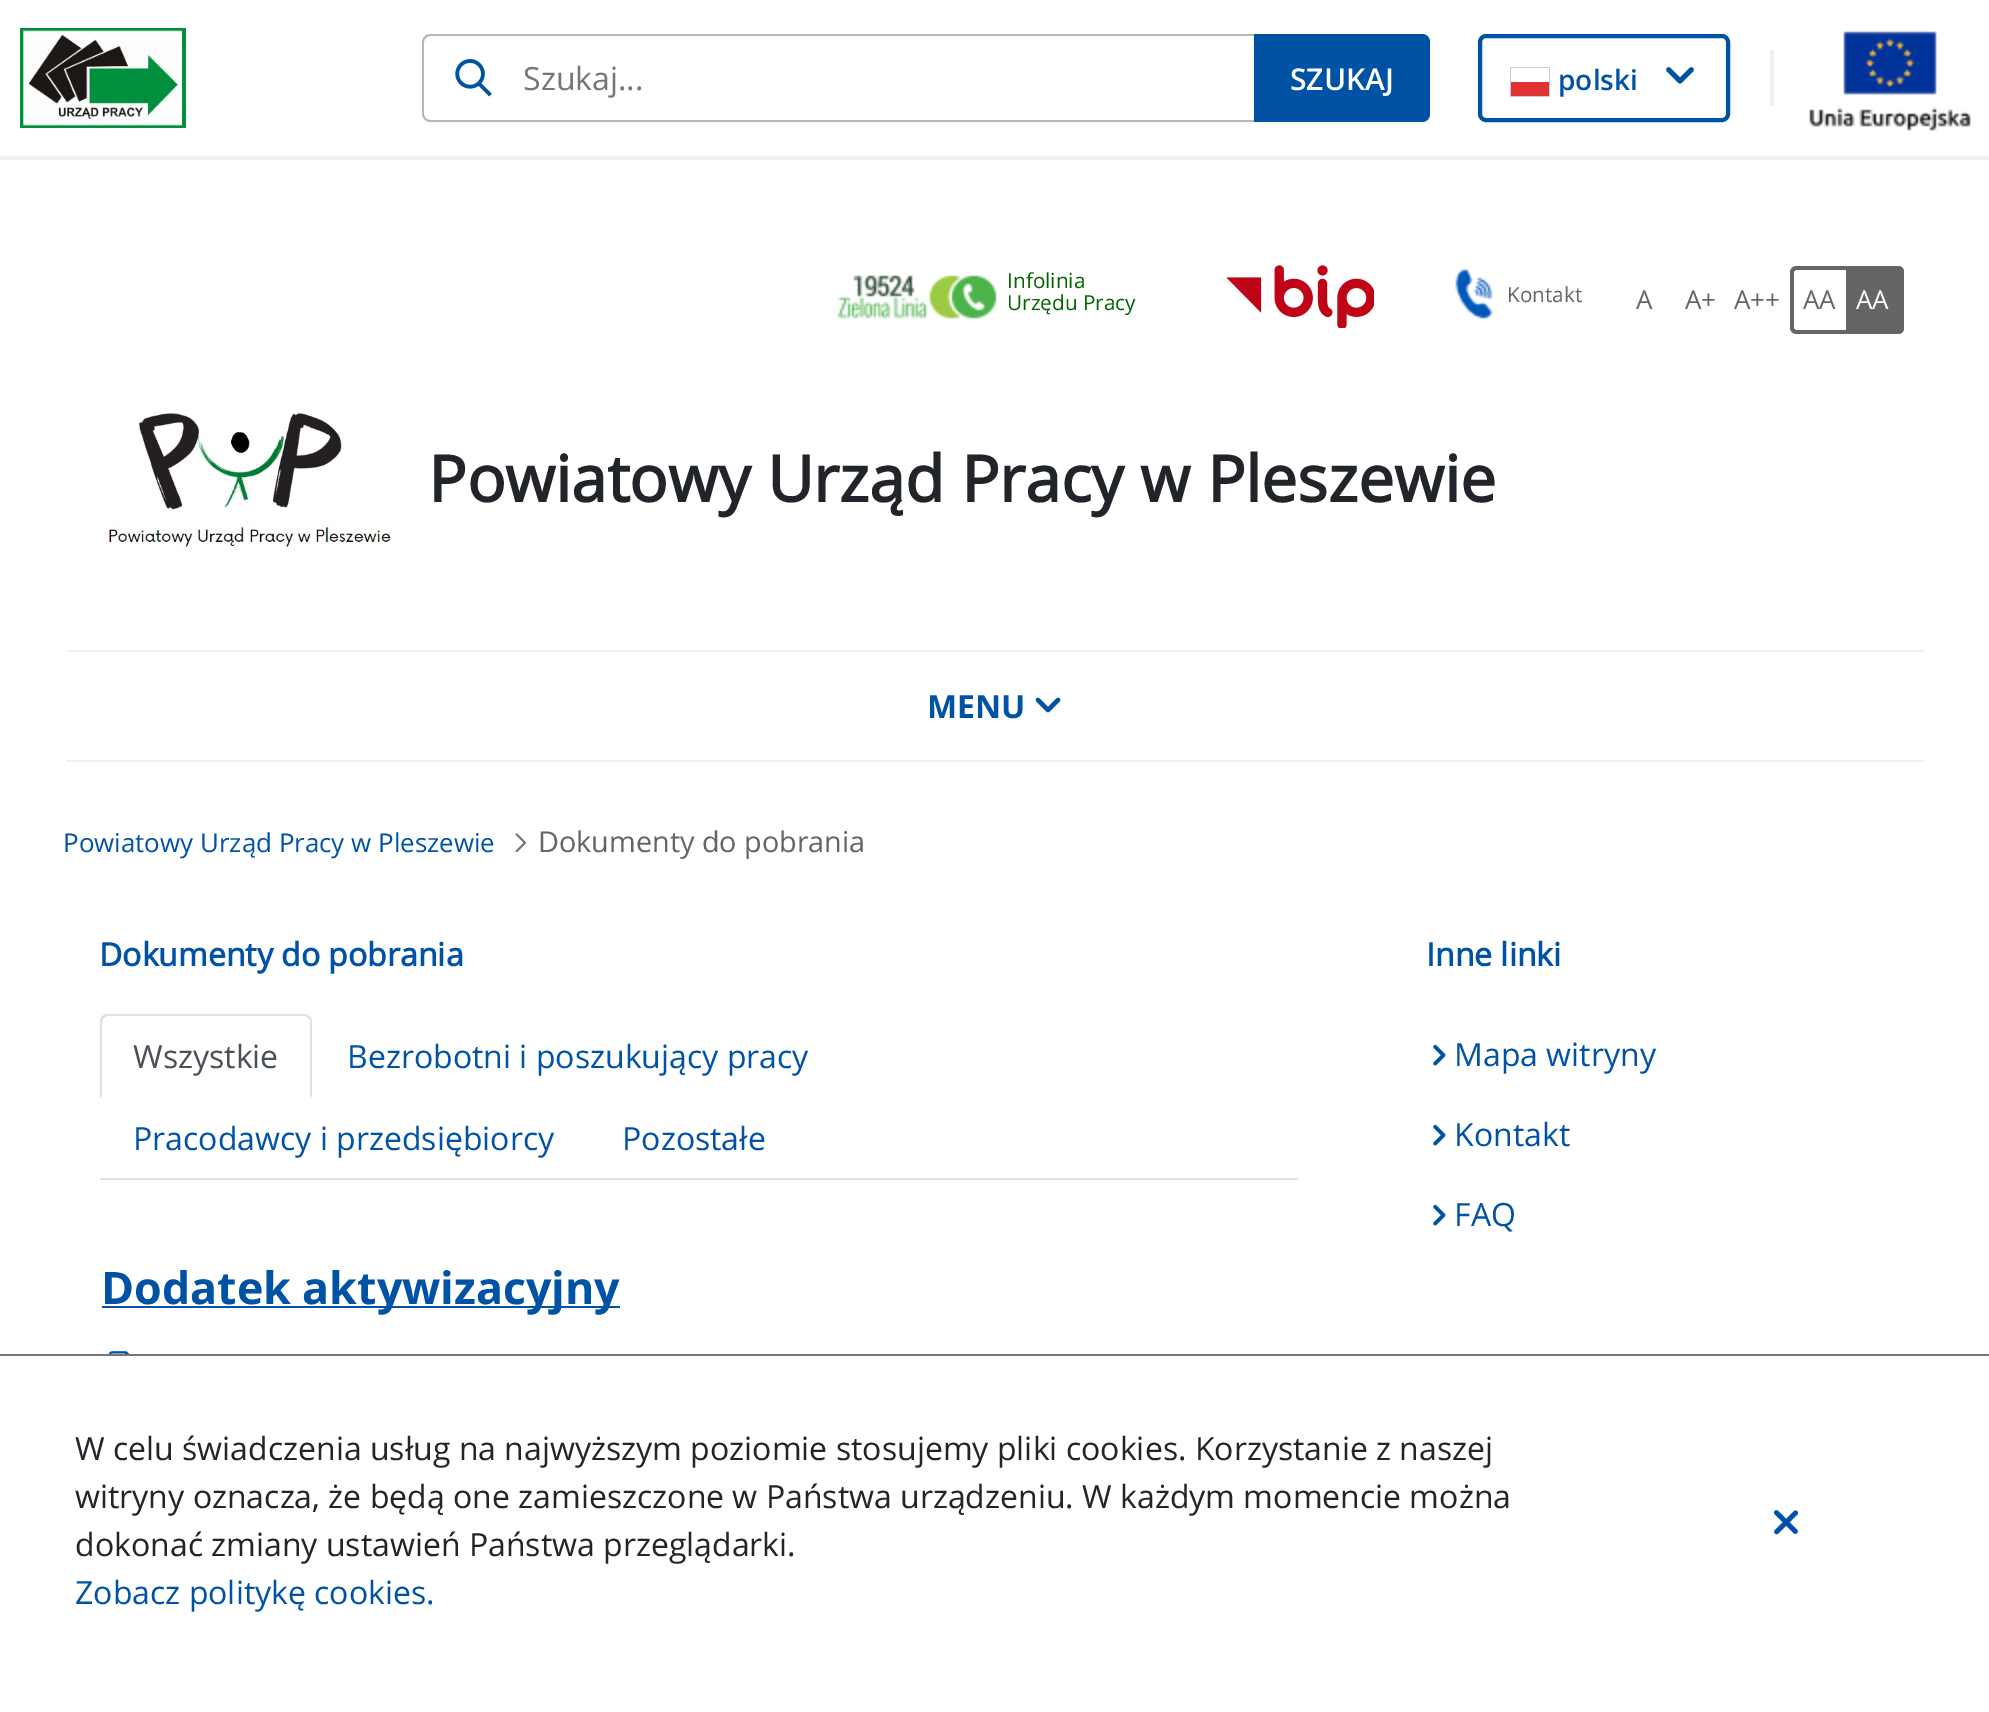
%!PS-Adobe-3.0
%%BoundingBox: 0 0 1989 1712
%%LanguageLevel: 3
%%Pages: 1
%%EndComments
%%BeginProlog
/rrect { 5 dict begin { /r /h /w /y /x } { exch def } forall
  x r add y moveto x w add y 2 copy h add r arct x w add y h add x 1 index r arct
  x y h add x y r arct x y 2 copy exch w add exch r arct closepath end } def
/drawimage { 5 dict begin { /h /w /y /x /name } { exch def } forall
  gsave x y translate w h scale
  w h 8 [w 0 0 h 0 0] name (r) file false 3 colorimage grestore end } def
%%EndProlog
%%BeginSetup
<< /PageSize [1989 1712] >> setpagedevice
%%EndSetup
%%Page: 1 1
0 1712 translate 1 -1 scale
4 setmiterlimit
1 setgray
0 0 1989 1712 rectfill
0.945 setgray
0 156 1989 4 rectfill
(images/1.raw) 20 28 166 100 drawimage
(images/2.raw) 455 59 37 38 drawimage
0.718 setgray
newpath 430 34 moveto 1254 34 lineto 1254 122 lineto 430 122 lineto 426 122 422 118 422 114 curveto 422 42 lineto 422 38 426 34 430 34 curveto closepath 430 36 moveto 1254 36 lineto 1254 120 lineto 430 120 lineto 427 120 424 117 424 114 curveto 424 42 lineto 424 39 427 36 430 36 curveto closepath eofill
0 0.322 0.647 setrgbcolor
newpath 1254 34 moveto 1422 34 lineto 1426.5 34 1430 37.5 1430 42 curveto 1430 114 lineto 1430 118.5 1426.5 122 1422 122 curveto 1254 122 lineto closepath fill
4 setlinewidth
1480 36 248 84 6 rrect stroke
0.753 0.812 0.847 setrgbcolor
1510 67 40 30 rectfill
1 setgray
1511 68 38 14 rectfill
0.878 0.196 0.196 setrgbcolor
1511 82 38 14 rectfill
(images/3.raw) 1666 67 28 17 drawimage
0.945 setgray
1770 50 4 56 rectfill
(images/4.raw) 1809 31 162 100 drawimage
(images/5.raw) 837 275 160 44 drawimage
(images/6.raw) 1226 265 148 63 drawimage
(images/7.raw) 1455 269 38 50 drawimage
0.396 setgray
newpath 1796 266 moveto 1846 266 lineto 1846 334 lineto 1796 334 lineto 1793 334 1790 331 1790 328 curveto 1790 272 lineto 1790 269 1793 266 1796 266 curveto closepath 1796 270 moveto 1846 270 lineto 1846 330 lineto 1796 330 lineto 1795 330 1794 329 1794 328 curveto 1794 272 lineto 1794 271 1795 270 1796 270 curveto closepath eofill
newpath 1846 266 moveto 1898 266 lineto 1901.5 266 1904 268.5 1904 272 curveto 1904 328 lineto 1904 331.5 1901.5 334 1898 334 curveto 1846 334 lineto closepath fill
newpath 1846 266 moveto 1898 266 lineto 1901 266 1904 269 1904 272 curveto 1904 328 lineto 1904 331 1901 334 1898 334 curveto 1846 334 lineto closepath 1846 270 moveto 1898 270 lineto 1899 270 1900 271 1900 272 curveto 1900 328 lineto 1900 329 1899 330 1898 330 curveto 1846 330 lineto closepath eofill
(images/8.raw) 100 413 292 141 drawimage
0.945 setgray
66 650 1858 2 rectfill
66 760 1858 2 rectfill
(images/9.raw) 1035 697 26 16 drawimage
(images/10.raw) 515 833 12 19 drawimage
0.871 0.886 0.902 setrgbcolor
100 1178 1198 2 rectfill
newpath 108 1014 moveto 106 1014 104 1015 102 1016 curveto 104 1018 lineto 105 1017 106 1016 108 1016 curveto 304 1016 lineto 306 1016 307 1017 308 1018 curveto 310 1016 lineto 308 1015 306 1014 304 1014 curveto closepath fill
newpath 312 1098 moveto 312 1022 lineto 312 1020 311 1018 310 1016 curveto 308 1018 lineto 310 1021 lineto 310 1096 lineto closepath fill
1 setgray
newpath 312 1098 moveto 310 1096 lineto 102 1096 lineto 100 1098 lineto closepath fill
0.871 0.886 0.902 setrgbcolor
newpath 100 1098 moveto 102 1096 lineto 102 1021 lineto 104 1018 lineto 102 1016 lineto 101 1018 100 1020 100 1022 curveto closepath fill
0 0.322 0.647 setrgbcolor
102 1306 518 2 rectfill
(images/11.raw) 108 1351 22 3 drawimage
(images/12.raw) 1433 1044 13 22 drawimage
(images/12.raw) 1433 1124 13 22 drawimage
(images/12.raw) 1433 1204 13 22 drawimage
0.463 setgray
0 1354 1989 2 rectfill
(images/13.raw) 1773 1510 26 25 drawimage
/OpenSans-Regular [32 0 0 -32 0 0] selectfont
523 90 moveto (Szukaj...) show
/OpenSans-SemiBold [30 0 0 -30 0 0] selectfont
1 setgray
1290 90 moveto (SZUKAJ) show
/OpenSans-SemiBold [28 0 0 -28 0 0] selectfont
0 0.322 0.647 setrgbcolor
1558 90 moveto (polski) show
/OpenSans-Regular [20.75 0 0 -20.75 0 0] selectfont
0.004 0.396 0.004 setrgbcolor
1007 288 moveto (Infolinia) show
1007 310 moveto (Urzędu Pracy) show
0.396 setgray
1507 302 moveto (Kontakt) show
/OpenSans-Regular [26 0 0 -26 0 0] selectfont
1636 309 moveto (A) show
1685 309 moveto (A+) show
1734 309 moveto (A++) show
1803 309 moveto (AA) show
1 setgray
1856 309 moveto (AA) show
/OpenSans-Bold [64 0 0 -64 0 0] selectfont
0.129 0.145 0.161 setrgbcolor
428 502 moveto (Powiatowy Urząd Pracy w Pleszewie) show
/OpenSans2-Bold [32 0 0 -32 0 0] selectfont
0 0.322 0.647 setrgbcolor
927 718 moveto (MENU) show
/OpenSans-Regular [25.9 0 0 -25.9 0 0] selectfont
63 852 moveto (Powiatowy Urząd Pracy w Pleszewie) show
/OpenSans-Regular [28.75 0 0 -28.75 0 0] selectfont
0.396 setgray
538 852 moveto (Dokumenty do pobrania) show
/OpenSans-Bold [32 0 0 -32 0 0] selectfont
0 0.322 0.647 setrgbcolor
99 966 moveto (Dokumenty do pobrania) show
/OpenSans-Regular [32 0 0 -32 0 0] selectfont
0.286 0.314 0.341 setrgbcolor
133 1068 moveto (Wszystkie) show
0 0.322 0.647 setrgbcolor
347 1068 moveto (Bezrobotni i poszukujący pracy) show
133 1150 moveto (Pracodawcy i przedsiębiorcy) show
622 1150 moveto (Pozostałe) show
/OpenSans2-Bold [44.75 0 0 -44.75 0 0] selectfont
101 1304 moveto (Dodatek aktywizacyjny) show
/OpenSans-Bold [32 0 0 -32 0 0] selectfont
1426 966 moveto (Inne linki) show
/OpenSans-Regular [32 0 0 -32 0 0] selectfont
1454 1066 moveto (Mapa witryny) show
1454 1146 moveto (Kontakt) show
1454 1226 moveto (FAQ) show
0.129 0.145 0.161 setrgbcolor
75 1460 moveto (W celu świadczenia usług na najwyższym poziomie stosujemy pliki cookies. Korzystanie z naszej) show
75 1508 moveto (witryny oznacza, że będą one zamieszczone w Państwa urządzeniu. W każdym momencie można) show
75 1556 moveto (dokonać zmiany ustawień Państwa przeglądarki.) show
0 0.322 0.647 setrgbcolor
75 1604 moveto (Zobacz politykę cookies.) show
showpage
%%EOF
